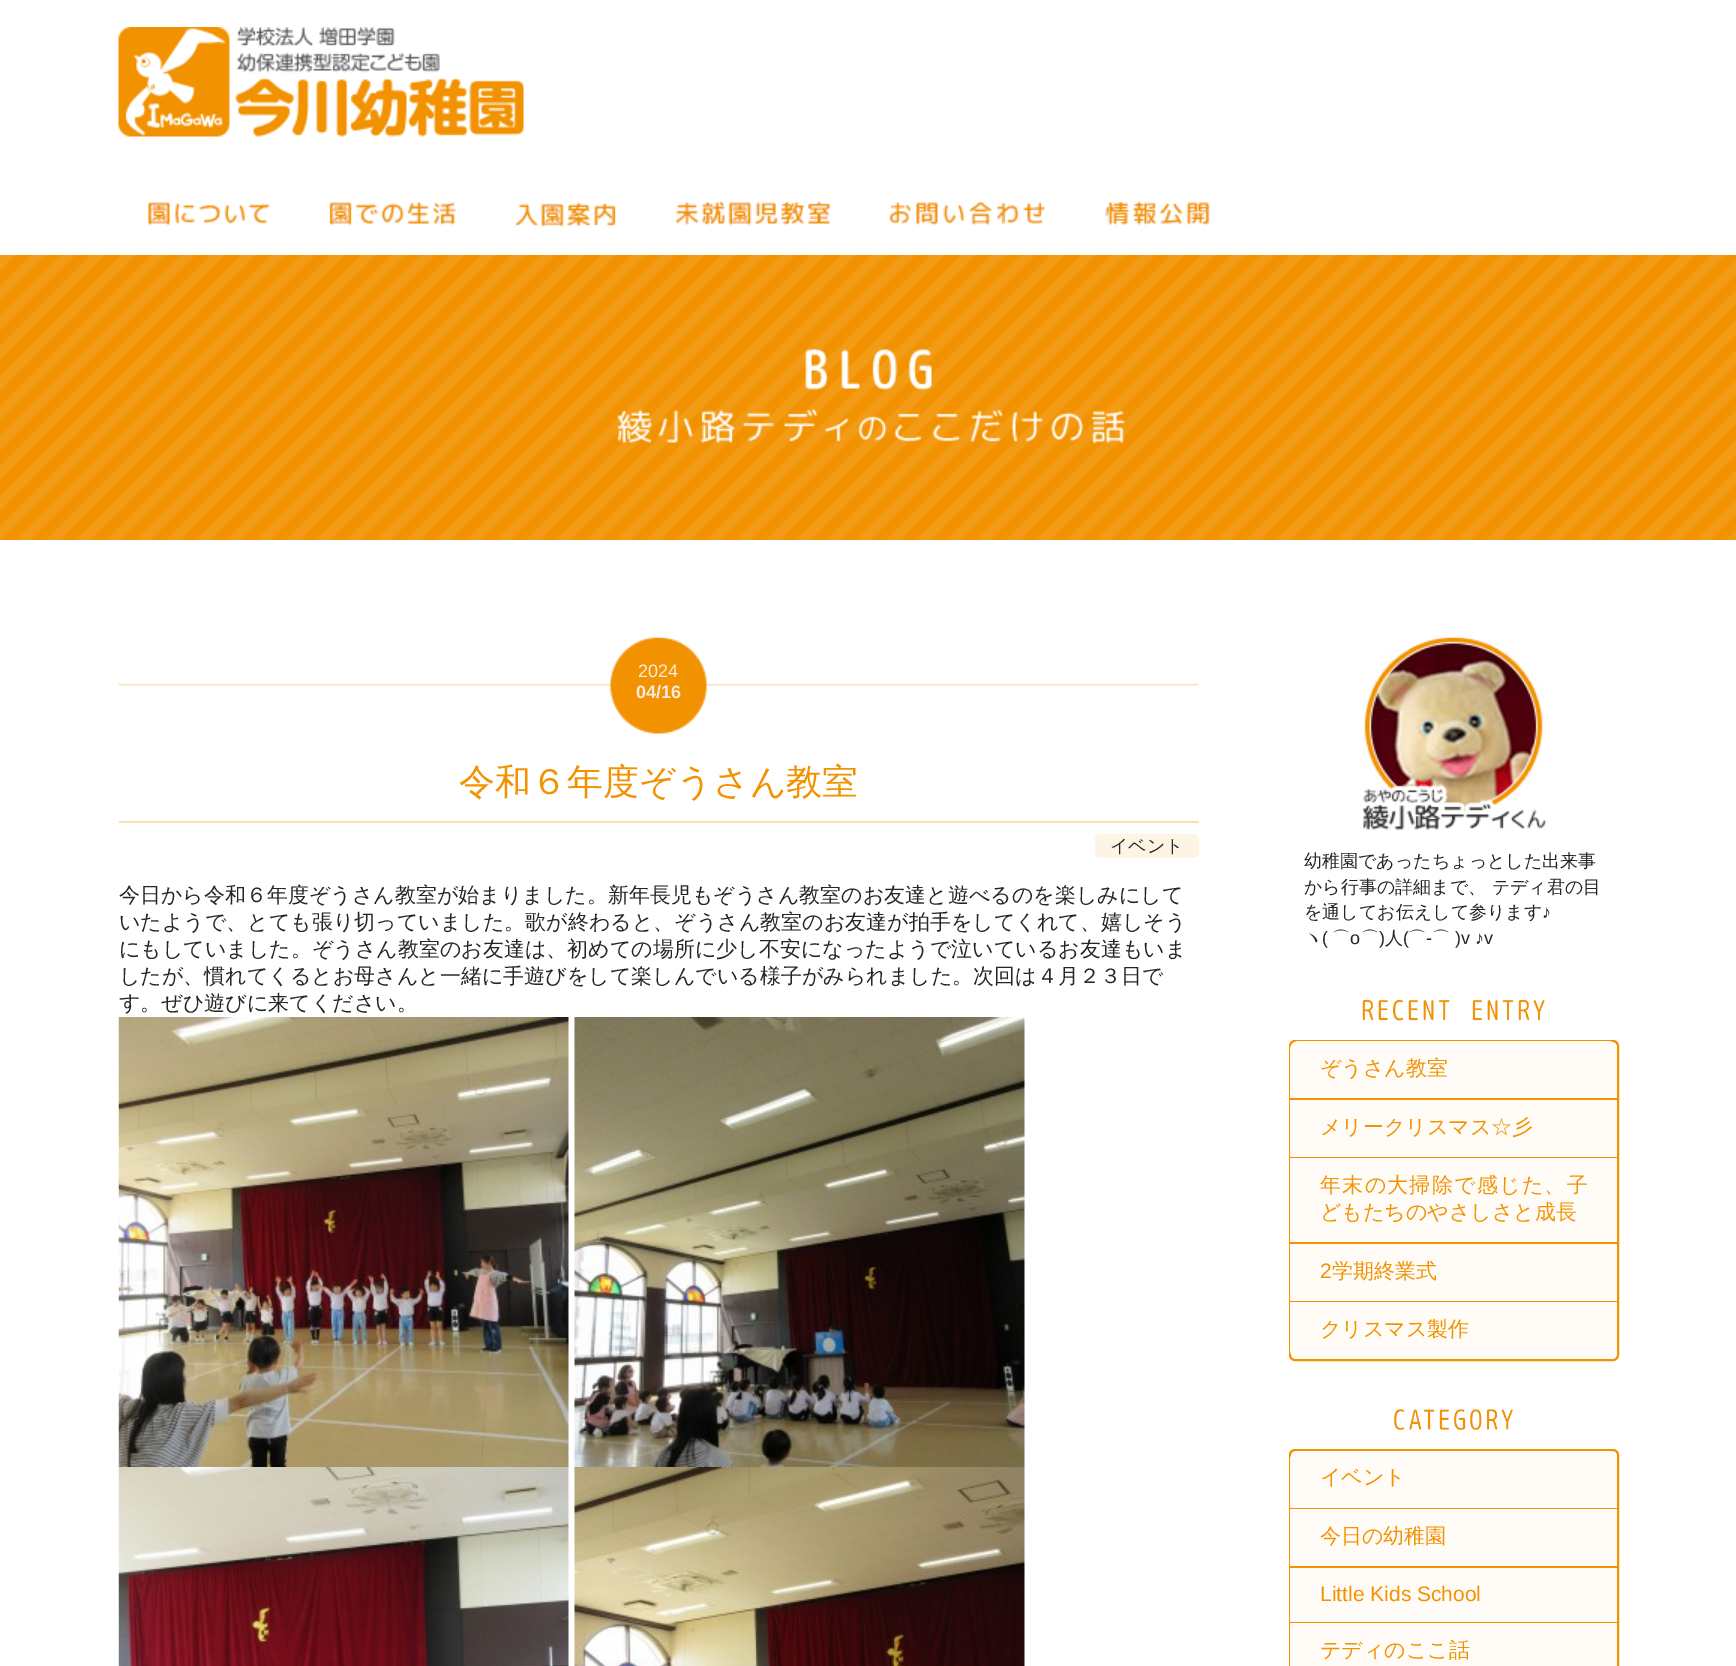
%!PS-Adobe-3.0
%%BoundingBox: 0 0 1736 1666
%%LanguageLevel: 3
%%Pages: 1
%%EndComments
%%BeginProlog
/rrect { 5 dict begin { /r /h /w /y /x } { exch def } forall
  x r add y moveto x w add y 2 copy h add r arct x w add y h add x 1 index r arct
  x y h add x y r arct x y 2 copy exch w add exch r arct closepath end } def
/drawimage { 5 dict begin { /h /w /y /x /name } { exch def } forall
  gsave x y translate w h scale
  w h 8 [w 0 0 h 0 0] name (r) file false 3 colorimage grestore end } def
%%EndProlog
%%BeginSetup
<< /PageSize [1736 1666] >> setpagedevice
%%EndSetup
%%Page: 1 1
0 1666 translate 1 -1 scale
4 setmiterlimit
1 setgray
0 0 1736 1666 rectfill
(images/1.raw) 118 27 406 110 drawimage
(images/2.raw) 120 177 151 49 drawimage
(images/3.raw) 329 202 128 24 drawimage
(images/4.raw) 515 202 101 25 drawimage
(images/5.raw) 675 201 155 25 drawimage
(images/6.raw) 889 202 157 24 drawimage
(images/7.raw) 1105 201 105 25 drawimage
(images/8.raw) 0 255 1736 285 drawimage
(images/9.raw) 617 349 509 96 drawimage
0.984 0.871 0.698 setrgbcolor
119 821 1080 2 rectfill
(images/10.raw) 118 637 1081 97 drawimage
0.996 0.957 0.898 setrgbcolor
1095 834 104 24 5 rrect fill
(images/11.raw) 118 1017 451 450 drawimage
(images/12.raw) 574 1017 451 450 drawimage
(images/13.raw) 118 1467 451 199 drawimage
(images/14.raw) 574 1467 451 199 drawimage
(images/15.raw) 1362 637 185 193 drawimage
(images/16.raw) 1362 999 183 22 drawimage
0.949 0.573 0 setrgbcolor
2 setlinewidth
1290 1041 328 319 5 rrect stroke
1290 1098 327 2 rectfill
1 0.988 0.969 setrgbcolor
newpath 1299 1041 moveto 1608 1041 lineto 1613 1041 1617 1045 1617 1050 curveto 1617 1098 lineto 1290 1098 lineto 1290 1050 lineto 1290 1045 1294 1041 1299 1041 curveto closepath fill
0.949 0.573 0 setrgbcolor
1290 1157 327 1 rectfill
1 0.988 0.969 setrgbcolor
1290 1100 327 57 rectfill
0.949 0.573 0 setrgbcolor
1290 1242 327 2 rectfill
1 0.988 0.969 setrgbcolor
1290 1158 327 84 rectfill
0.949 0.573 0 setrgbcolor
1290 1301 327 1 rectfill
1 0.988 0.969 setrgbcolor
1290 1244 327 57 rectfill
newpath 1290 1302 moveto 1617 1302 lineto 1617 1350 lineto 1617 1355 1613 1359 1608 1359 curveto 1299 1359 lineto 1294 1359 1290 1355 1290 1350 curveto closepath fill
(images/17.raw) 1394 1409 119 21 drawimage
0.949 0.573 0 setrgbcolor
1290 1450 328 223 5 rrect stroke
1290 1508 327 1 rectfill
1 0.988 0.969 setrgbcolor
newpath 1299 1451 moveto 1608 1451 lineto 1613 1451 1617 1455 1617 1460 curveto 1617 1508 lineto 1290 1508 lineto 1290 1460 lineto 1290 1455 1294 1451 1299 1451 curveto closepath fill
0.949 0.573 0 setrgbcolor
1290 1566 327 2 rectfill
1 0.988 0.969 setrgbcolor
1290 1509 327 57 rectfill
0.949 0.573 0 setrgbcolor
1290 1622 327 1 rectfill
1 0.988 0.969 setrgbcolor
1290 1568 327 54 rectfill
1290 1623 327 43 rectfill
/LiberationSans-Regular [18 0 0 -18 0 0] selectfont
0.988 0.925 0.867 setrgbcolor
638 677 moveto (2024) show
/LiberationSans-Bold [18 0 0 -18 0 0] selectfont
636 698 moveto (04/16) show
/WenQuanYiZenHei-Medium [36 0 0 -36 0 0] selectfont
0.949 0.573 0 setrgbcolor
459 794 moveto (令和６年度ぞうさん教室) show
/WenQuanYiZenHei-Medium [18 0 0 -18 0 0] selectfont
0.145 setgray
1110 852 moveto (イベント) show
/WenQuanYiZenHei-Medium [21 0 0 -21 0 0] selectfont
119 902 moveto (今日から令和６年度ぞうさん教室が始まりました。新年長児もぞうさん教室のお友達と遊べるのを楽しみにして) show
119 929 moveto (いたようで、とても張り切っていました。歌が終わると、ぞうさん教室のお友達が拍手をしてくれて、嬉しそう) show
119 956 moveto (にもしていました。ぞうさん教室のお友達は、初めての場所に少し不安になったようで泣いているお友達もいま) show
119 983 moveto (したが、慣れてくるとお母さんと一緒に手遊びをして楽しんでいる様子がみられました。次回は４月２３日で) show
119 1010 moveto (す。ぜひ遊びに来てください。) show
/WenQuanYiZenHei-Medium [18 0 0 -18 0 0] selectfont
1304 867 moveto (幼稚園であったちょっとした出来事) show
1304 893 moveto (から行事の詳細まで、 テディ君の目) show
1304 918 moveto (を通してお伝えして参ります) show
/LiberationSans-Regular [18 0 0 -18 0 0] selectfont
1542 918 moveto (♪) show
/WenQuanYiZenHei-Medium [18 0 0 -18 0 0] selectfont
1304 944 moveto (ヽ) show
/LiberationSans-Regular [18 0 0 -18 0 0] selectfont
1322 944 moveto (\() show
/WenQuanYiZenHei-Medium [18 0 0 -18 0 0] selectfont
1332 944 moveto (⌒) show
/LiberationSans-Regular [18 0 0 -18 0 0] selectfont
1350 944 moveto (o) show
/WenQuanYiZenHei-Medium [18 0 0 -18 0 0] selectfont
1361 944 moveto (⌒) show
/LiberationSans-Regular [18 0 0 -18 0 0] selectfont
1379 944 moveto (\)) show
/WenQuanYiZenHei-Medium [18 0 0 -18 0 0] selectfont
1385 944 moveto (人) show
/LiberationSans-Regular [18 0 0 -18 0 0] selectfont
1403 944 moveto (\() show
/WenQuanYiZenHei-Medium [18 0 0 -18 0 0] selectfont
1408 944 moveto (⌒) show
/LiberationSans-Regular [18 0 0 -18 0 0] selectfont
1426 944 moveto (-) show
/WenQuanYiZenHei-Medium [18 0 0 -18 0 0] selectfont
1432 944 moveto (⌒) show
/LiberationSans-Regular [18 0 0 -18 0 0] selectfont
1455 944 moveto (\)v ♪v) show
/WenQuanYiZenHei-Medium [21 0 0 -21 0 0] selectfont
0.949 0.573 0 setrgbcolor
1320 1075 moveto (ぞうさん教室) show
1320 1134 moveto (メリークリスマス☆彡) show
1320 1192 moveto 1.25 0 (年末の大掃除で感じた、子) ashow
1320 1219 moveto (どもたちのやさしさと成長) show
/LiberationSans-Regular [21 0 0 -21 0 0] selectfont
1320 1278 moveto (2) show
/WenQuanYiZenHei-Medium [21 0 0 -21 0 0] selectfont
1332 1278 moveto (学期終業式) show
1320 1336 moveto (クリスマス製作) show
1320 1484 moveto (イベント) show
1320 1543 moveto (今日の幼稚園) show
/LiberationSans-Regular [21 0 0 -21 0 0] selectfont
1320 1601 moveto (Little Kids School) show
/WenQuanYiZenHei-Medium [21 0 0 -21 0 0] selectfont
1320 1657 moveto (テディのここ話) show
showpage
%%EOF
